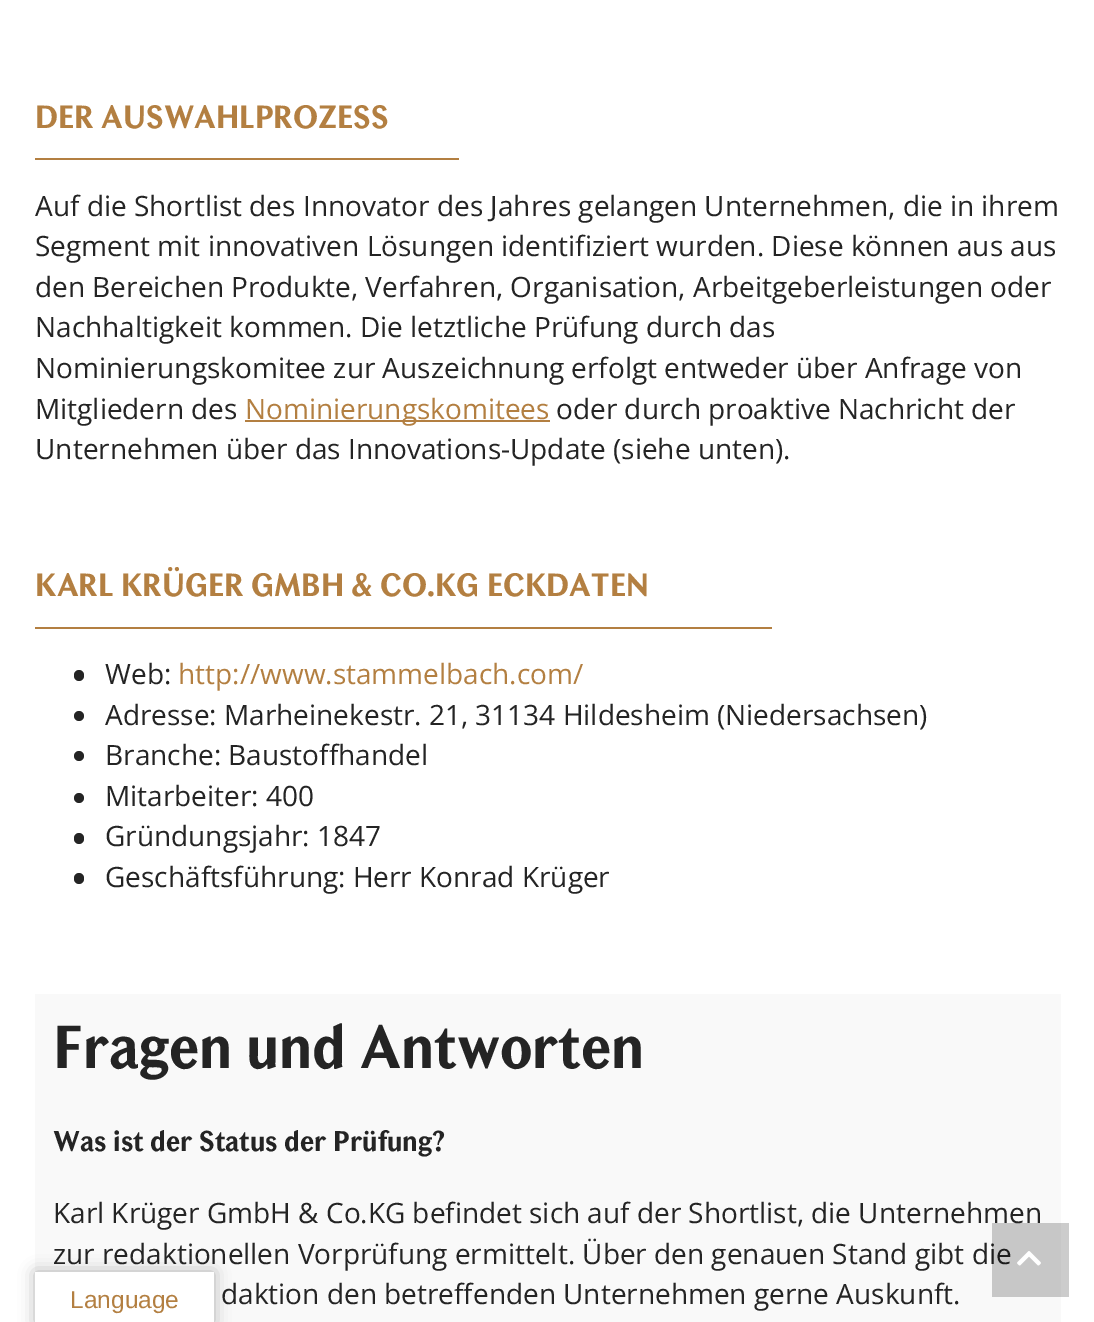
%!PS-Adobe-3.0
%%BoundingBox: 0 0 1094 1322
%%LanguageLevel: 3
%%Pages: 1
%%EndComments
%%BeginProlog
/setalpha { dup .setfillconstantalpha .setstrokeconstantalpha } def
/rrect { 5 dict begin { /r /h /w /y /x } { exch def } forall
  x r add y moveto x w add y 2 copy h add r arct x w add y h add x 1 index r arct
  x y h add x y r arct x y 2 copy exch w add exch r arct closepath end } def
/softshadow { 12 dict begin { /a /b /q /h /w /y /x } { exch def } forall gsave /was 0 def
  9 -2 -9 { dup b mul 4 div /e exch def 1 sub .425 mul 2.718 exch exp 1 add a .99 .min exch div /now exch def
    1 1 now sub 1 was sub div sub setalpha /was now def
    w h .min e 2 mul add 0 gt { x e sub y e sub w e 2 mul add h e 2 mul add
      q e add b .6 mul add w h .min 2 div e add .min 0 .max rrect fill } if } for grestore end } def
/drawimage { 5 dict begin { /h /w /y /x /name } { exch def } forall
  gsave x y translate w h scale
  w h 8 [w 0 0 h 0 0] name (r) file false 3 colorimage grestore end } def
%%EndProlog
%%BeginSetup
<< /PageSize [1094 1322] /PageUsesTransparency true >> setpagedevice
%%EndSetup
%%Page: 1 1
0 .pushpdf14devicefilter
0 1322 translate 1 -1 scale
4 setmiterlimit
1 setgray
0 0 1094 1322 rectfill
0.702 0.498 0.255 setrgbcolor
35 158 424 2 rectfill
245 420 305 2 rectfill
35 627 737 2 rectfill
0.141 setgray
74 670 10 11 5 rrect fill
newpath 79 716 5 0 360 arc closepath fill
newpath 79 756 5 0 360 arc closepath fill
newpath 79 798 5 0 360 arc closepath fill
74 833 10 11 5 rrect fill
74 873 10 11 5 rrect fill
0.976 setgray
35 994 1026 328 rectfill
0 setgray
35 1272 179 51 0 8 0.3 softshadow
1 setgray
35 1272 179 50 rectfill
/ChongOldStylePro-Bold [31.5 0 0 -31.5 0 0] selectfont
0.702 0.498 0.255 setrgbcolor
35 128 moveto (DER AUSWAHLPROZESS) show
/OpenSans-Regular [28 0 0 -28 0 0] selectfont
0.141 setgray
35 216 moveto (Auf die Shortlist des Innovator des Jahres gelangen Unternehmen, die in ihrem) show
35 256 moveto (Segment mit innovativen Lösungen identifiziert wurden. Diese können aus aus) show
35 297 moveto (den Bereichen Produkte, Verfahren, Organisation, Arbeitgeberleistungen oder) show
35 337 moveto (Nachhaltigkeit kommen. Die letztliche Prüfung durch das) show
35 378 moveto (Nominierungskomitee zur Auszeichnung erfolgt entweder über Anfrage von) show
35 419 moveto (Mitgliedern des) show
0.702 0.498 0.255 setrgbcolor
245 419 moveto (Nominierungskomitees) show
0.141 setgray
556 419 moveto (oder durch proaktive Nachricht der) show
35 459 moveto (Unternehmen über das Innovations-Update \(siehe unten\).) show
/ChongOldStylePro-Bold [31.5 0 0 -31.5 0 0] selectfont
0.702 0.498 0.255 setrgbcolor
35 596 moveto (KARL KRÜGER GMBH & CO.KG ECKDATEN) show
/OpenSans-Regular [28 0 0 -28 0 0] selectfont
0.141 setgray
105 684 moveto (Web:) show
0.702 0.498 0.255 setrgbcolor
178 684 moveto (http://www.stammelbach.com/) show
0.141 setgray
105 725 moveto (Adresse: Marheinekestr. 21, 31134 Hildesheim \(Niedersachsen\)) show
105 765 moveto (Branche: Baustoffhandel) show
105 806 moveto (Mitarbeiter: 400) show
105 846 moveto (Gründungsjahr: 1847) show
105 887 moveto (Geschäftsführung: Herr Konrad Krüger) show
/ChongOldStylePro-Bold [59.5 0 0 -59.5 0 0] selectfont
53 1068 moveto (Fragen und Antworten) show
/ChongOldStylePro-Bold [28 0 0 -28 0 0] selectfont
53 1151 moveto (Was ist der Status der Prüfung?) show
/OpenSans-Regular [28 0 0 -28 0 0] selectfont
53 1223 moveto (Karl Krüger GmbH & Co.KG befindet sich auf der Shortlist, die Unternehmen) show
53 1264 moveto (zur redaktionellen Vorprüfung ermittelt. Über den genauen Stand gibt die) show
221 1304 moveto (daktion den betreffenden Unternehmen gerne Auskunft.) show
0.2 setalpha
0 setgray
992 1223 77 74 rectfill
1 setalpha
(images/1.raw) 1017 1251 24 15 drawimage
/LiberationSans-Regular [24.5 0 0 -24.5 0 0] selectfont
0.702 0.498 0.255 setrgbcolor
70 1308 moveto (Language) show
.poppdf14devicefilter showpage
%%EOF
